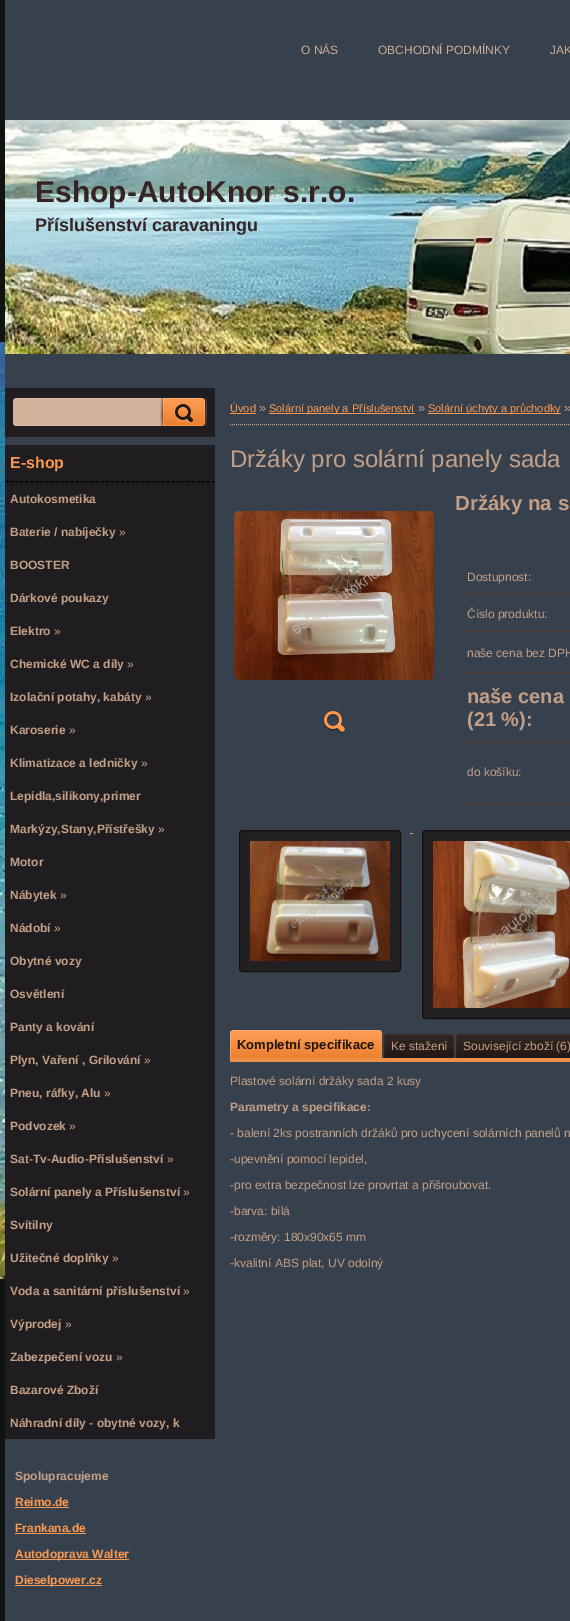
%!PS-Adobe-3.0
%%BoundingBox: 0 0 570 1621
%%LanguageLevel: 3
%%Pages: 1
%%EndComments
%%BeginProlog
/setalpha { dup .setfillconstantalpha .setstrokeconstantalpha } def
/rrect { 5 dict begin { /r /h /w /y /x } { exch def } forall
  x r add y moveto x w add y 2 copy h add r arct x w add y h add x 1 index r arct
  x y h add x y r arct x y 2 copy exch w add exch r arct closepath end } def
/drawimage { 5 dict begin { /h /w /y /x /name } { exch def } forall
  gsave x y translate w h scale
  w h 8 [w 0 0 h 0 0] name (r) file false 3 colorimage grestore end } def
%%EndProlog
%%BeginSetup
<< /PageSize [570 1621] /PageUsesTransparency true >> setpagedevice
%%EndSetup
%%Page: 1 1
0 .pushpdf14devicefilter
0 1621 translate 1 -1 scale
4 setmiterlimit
0.067 0.075 0.067 setrgbcolor
0 0 570 1621 rectfill
(images/1.raw) 0 342 5 937 drawimage
0.216 0.255 0.302 setrgbcolor
5 0 565 1621 rectfill
(images/2.raw) 5 120 565 234 drawimage
0.122 0.114 0.122 setrgbcolor
5 388 210 49 rectfill
(images/3.raw) 13 398 194 28 drawimage
(images/4.raw) 159 398 47 28 drawimage
5 445 210 994 rectfill
0 setgray
[3 2.05] 0 setdash
newpath 5 481.5 moveto 215 481.5 lineto stroke
0.984 0.6 0.318 setrgbcolor
15 1507 54 1 rectfill
15 1533 71 1 rectfill
15 1559 114 1 rectfill
15 1585 87 1 rectfill
0.769 0.624 0.529 setrgbcolor
[1 1] 0 setdash
newpath 230 424.5 moveto 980 424.5 lineto stroke
0.984 0.6 0.318 setrgbcolor
230 413 26 1 rectfill
269 413 146 1 rectfill
428 413 133 1 rectfill
(images/5.raw) 234 511 200 169 drawimage
(images/6.raw) 323 711 23 23 drawimage
0.345 0.231 0.173 setrgbcolor
457 594 113 1 rectfill
457 631 113 1 rectfill
457 672 113 1 rectfill
457 741 113 1 rectfill
457 803 113 1 rectfill
(images/7.raw) 239 830 162 142 drawimage
0.9 setalpha
0.09 0.051 0.047 setrgbcolor
[] 0 setdash
239.5 830.5 161 141 3.5 rrect stroke
1 setalpha
(images/8.raw) 422 830 148 189 drawimage
0.984 0.6 0.318 setrgbcolor
410 833 3 1 rectfill
0.9 setalpha
0.09 0.051 0.047 setrgbcolor
422.5 830.5 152 188 3.5 rrect stroke
1 setalpha
(images/9.raw) 250 841 140 120 drawimage
(images/10.raw) 433 841 137 167 drawimage
(images/11.raw) 230 1030 150 28 drawimage
(images/12.raw) 232 1030 150 28 drawimage
(images/13.raw) 384 1034 68 24 drawimage
(images/14.raw) 386 1034 68 24 drawimage
(images/15.raw) 456 1034 114 24 drawimage
0.231 0.176 0.157 setrgbcolor
458 1034 1 1 rectfill
0.922 0.557 0.282 setrgbcolor
230 1058 340 4 rectfill
/LiberationSans-Regular [12 0 0 -12 0 0] selectfont
0.812 0.675 0.584 setrgbcolor
301 54 moveto (O NÁS) show
378 54 moveto (OBCHODNÍ PODMÍNKY) show
550 54 moveto (JAK) show
/LiberationSans-Bold [30 0 0 -30 0 0] selectfont
0.204 0.141 0.149 setrgbcolor
35 202 moveto (Eshop-AutoKnor s.r.o.) show
/LiberationSans-Bold [18 0 0 -18 0 0] selectfont
35 231 moveto (Příslušenství caravaningu) show
/LiberationSans-Bold [16 0 0 -16 0 0] selectfont
0.984 0.6 0.318 setrgbcolor
10 468 moveto (E-shop) show
/LiberationSans-Bold [12 0 0 -12 0 0] selectfont
0.769 0.624 0.529 setrgbcolor
10 503 moveto (Autokosmetika) show
10 536 moveto (Baterie / nabíječky) show
/LiberationSans-Regular [12 0 0 -12 0 0] selectfont
119 536 moveto (») show
/LiberationSans-Bold [12 0 0 -12 0 0] selectfont
10 569 moveto (BOOSTER) show
10 602 moveto (Dárkové poukazy) show
10 635 moveto (Elektro) show
/LiberationSans-Regular [12 0 0 -12 0 0] selectfont
54 635 moveto (») show
/LiberationSans-Bold [12 0 0 -12 0 0] selectfont
10 668 moveto (Chemické WC a díly) show
/LiberationSans-Regular [12 0 0 -12 0 0] selectfont
127 668 moveto (») show
/LiberationSans-Bold [12 0 0 -12 0 0] selectfont
10 701 moveto (Izolační potahy, kabáty) show
/LiberationSans-Regular [12 0 0 -12 0 0] selectfont
145 701 moveto (») show
/LiberationSans-Bold [12 0 0 -12 0 0] selectfont
10 734 moveto (Karoserie) show
/LiberationSans-Regular [12 0 0 -12 0 0] selectfont
69 734 moveto (») show
/LiberationSans-Bold [12 0 0 -12 0 0] selectfont
10 767 moveto (Klimatizace a ledničky) show
/LiberationSans-Regular [12 0 0 -12 0 0] selectfont
141 767 moveto (») show
/LiberationSans-Bold [12 0 0 -12 0 0] selectfont
10 800 moveto (Lepidla,silikony,primer) show
10 833 moveto (Markýzy,Stany,Přístřešky) show
/LiberationSans-Regular [12 0 0 -12 0 0] selectfont
158 833 moveto (») show
/LiberationSans-Bold [12 0 0 -12 0 0] selectfont
10 866 moveto (Motor) show
10 899 moveto (Nábytek) show
/LiberationSans-Regular [12 0 0 -12 0 0] selectfont
60 899 moveto (») show
/LiberationSans-Bold [12 0 0 -12 0 0] selectfont
10 932 moveto (Nádobí) show
/LiberationSans-Regular [12 0 0 -12 0 0] selectfont
54 932 moveto (») show
/LiberationSans-Bold [12 0 0 -12 0 0] selectfont
10 965 moveto (Obytné vozy) show
10 998 moveto (Osvětlení) show
10 1031 moveto (Panty a kování) show
10 1064 moveto (Plyn, Vaření , Grilování) show
/LiberationSans-Regular [12 0 0 -12 0 0] selectfont
144 1064 moveto (») show
/LiberationSans-Bold [12 0 0 -12 0 0] selectfont
10 1097 moveto (Pneu, ráfky, Alu) show
/LiberationSans-Regular [12 0 0 -12 0 0] selectfont
104 1097 moveto (») show
/LiberationSans-Bold [12 0 0 -12 0 0] selectfont
10 1130 moveto (Podvozek) show
/LiberationSans-Regular [12 0 0 -12 0 0] selectfont
69 1130 moveto (») show
/LiberationSans-Bold [12 0 0 -12 0 0] selectfont
10 1163 moveto (Sat-Tv-Audio-Příslušenství) show
/LiberationSans-Regular [12 0 0 -12 0 0] selectfont
167 1163 moveto (») show
/LiberationSans-Bold [12 0 0 -12 0 0] selectfont
10 1196 moveto (Solární panely a Příslušenství) show
/LiberationSans-Regular [12 0 0 -12 0 0] selectfont
183 1196 moveto (») show
/LiberationSans-Bold [12 0 0 -12 0 0] selectfont
10 1229 moveto (Svítilny) show
10 1262 moveto (Užitečné doplňky) show
/LiberationSans-Regular [12 0 0 -12 0 0] selectfont
112 1262 moveto (») show
/LiberationSans-Bold [12 0 0 -12 0 0] selectfont
10 1295 moveto (Voda a sanitární příslušenství) show
/LiberationSans-Regular [12 0 0 -12 0 0] selectfont
183 1295 moveto (») show
/LiberationSans-Bold [12 0 0 -12 0 0] selectfont
10 1328 moveto (Výprodej) show
/LiberationSans-Regular [12 0 0 -12 0 0] selectfont
65 1328 moveto (») show
/LiberationSans-Bold [12 0 0 -12 0 0] selectfont
10 1361 moveto (Zabezpečení vozu) show
/LiberationSans-Regular [12 0 0 -12 0 0] selectfont
116 1361 moveto (») show
/LiberationSans-Bold [12 0 0 -12 0 0] selectfont
10 1394 moveto (Bazarové Zboží) show
10 1427 moveto (Náhradní díly - obytné vozy, k) show
15 1480 moveto (Spolupracujeme) show
0.984 0.6 0.318 setrgbcolor
15 1506 moveto (Reimo.de) show
15 1532 moveto (Frankana.de) show
15 1558 moveto (Autodoprava Walter) show
15 1584 moveto (Dieselpower.cz) show
/LiberationSans-Regular [11 0 0 -11 0 0] selectfont
230 412 moveto (Úvod) show
/LiberationSans-Regular [13 0 0 -13 0 0] selectfont
0.769 0.624 0.529 setrgbcolor
259 412 moveto (») show
/LiberationSans-Regular [11 0 0 -11 0 0] selectfont
0.984 0.6 0.318 setrgbcolor
269 412 moveto (Solární panely a Příslušenství) show
/LiberationSans-Regular [13 0 0 -13 0 0] selectfont
0.769 0.624 0.529 setrgbcolor
418 412 moveto (») show
/LiberationSans-Regular [11 0 0 -11 0 0] selectfont
0.984 0.6 0.318 setrgbcolor
428 412 moveto (Solární úchyty a průchodky) show
/LiberationSans-Regular [13 0 0 -13 0 0] selectfont
0.769 0.624 0.529 setrgbcolor
564 412 moveto (») show
/LiberationSans-Regular [24 0 0 -24 0 0] selectfont
230 467 moveto (Držáky pro solární panely sada) show
/LiberationSans-Bold [20.5 0 0 -20.5 0 0] selectfont
455 510 moveto (Držáky na s) show
/LiberationSans-Regular [12 0 0 -12 0 0] selectfont
467 581 moveto (Dostupnost:) show
467 618 moveto (Číslo produktu:) show
467 657 moveto (naše cena bez DPH) show
/LiberationSans-Bold [20 0 0 -20 0 0] selectfont
467 703 moveto (naše cena) show
467 726 moveto (\(21 %\):) show
/LiberationSans-Regular [12 0 0 -12 0 0] selectfont
467 776 moveto (do košíku:) show
/LiberationSans-Bold [13 0 0 -13 0 0] selectfont
0.114 0.075 0.043 setrgbcolor
237 1049 moveto (Kompletní specifikace) show
/LiberationSans-Regular [12 0 0 -12 0 0] selectfont
0.769 0.624 0.529 setrgbcolor
391 1050 moveto (Ke stažení) show
463 1050 moveto (Související zboží \(6\)) show
230 1085 moveto (Plastové solární držáky sada 2 kusy) show
/LiberationSans-Bold [12 0 0 -12 0 0] selectfont
230 1111 moveto (Parametry a specifikace:) show
/LiberationSans-Regular [12 0 0 -12 0 0] selectfont
230 1137 moveto (- balení 2ks postranních držáků pro uchycení solárních panelů n) show
230 1163 moveto (-upevnění pomocí lepidel,) show
230 1189 moveto (-pro extra bezpečnost lze provrtat a přišroubovat.) show
230 1215 moveto (-barva: bílá) show
230 1241 moveto (-rozměry: 180x90x65 mm) show
230 1267 moveto (-kvalitní ABS plat, UV odolný) show
.poppdf14devicefilter showpage
%%EOF
